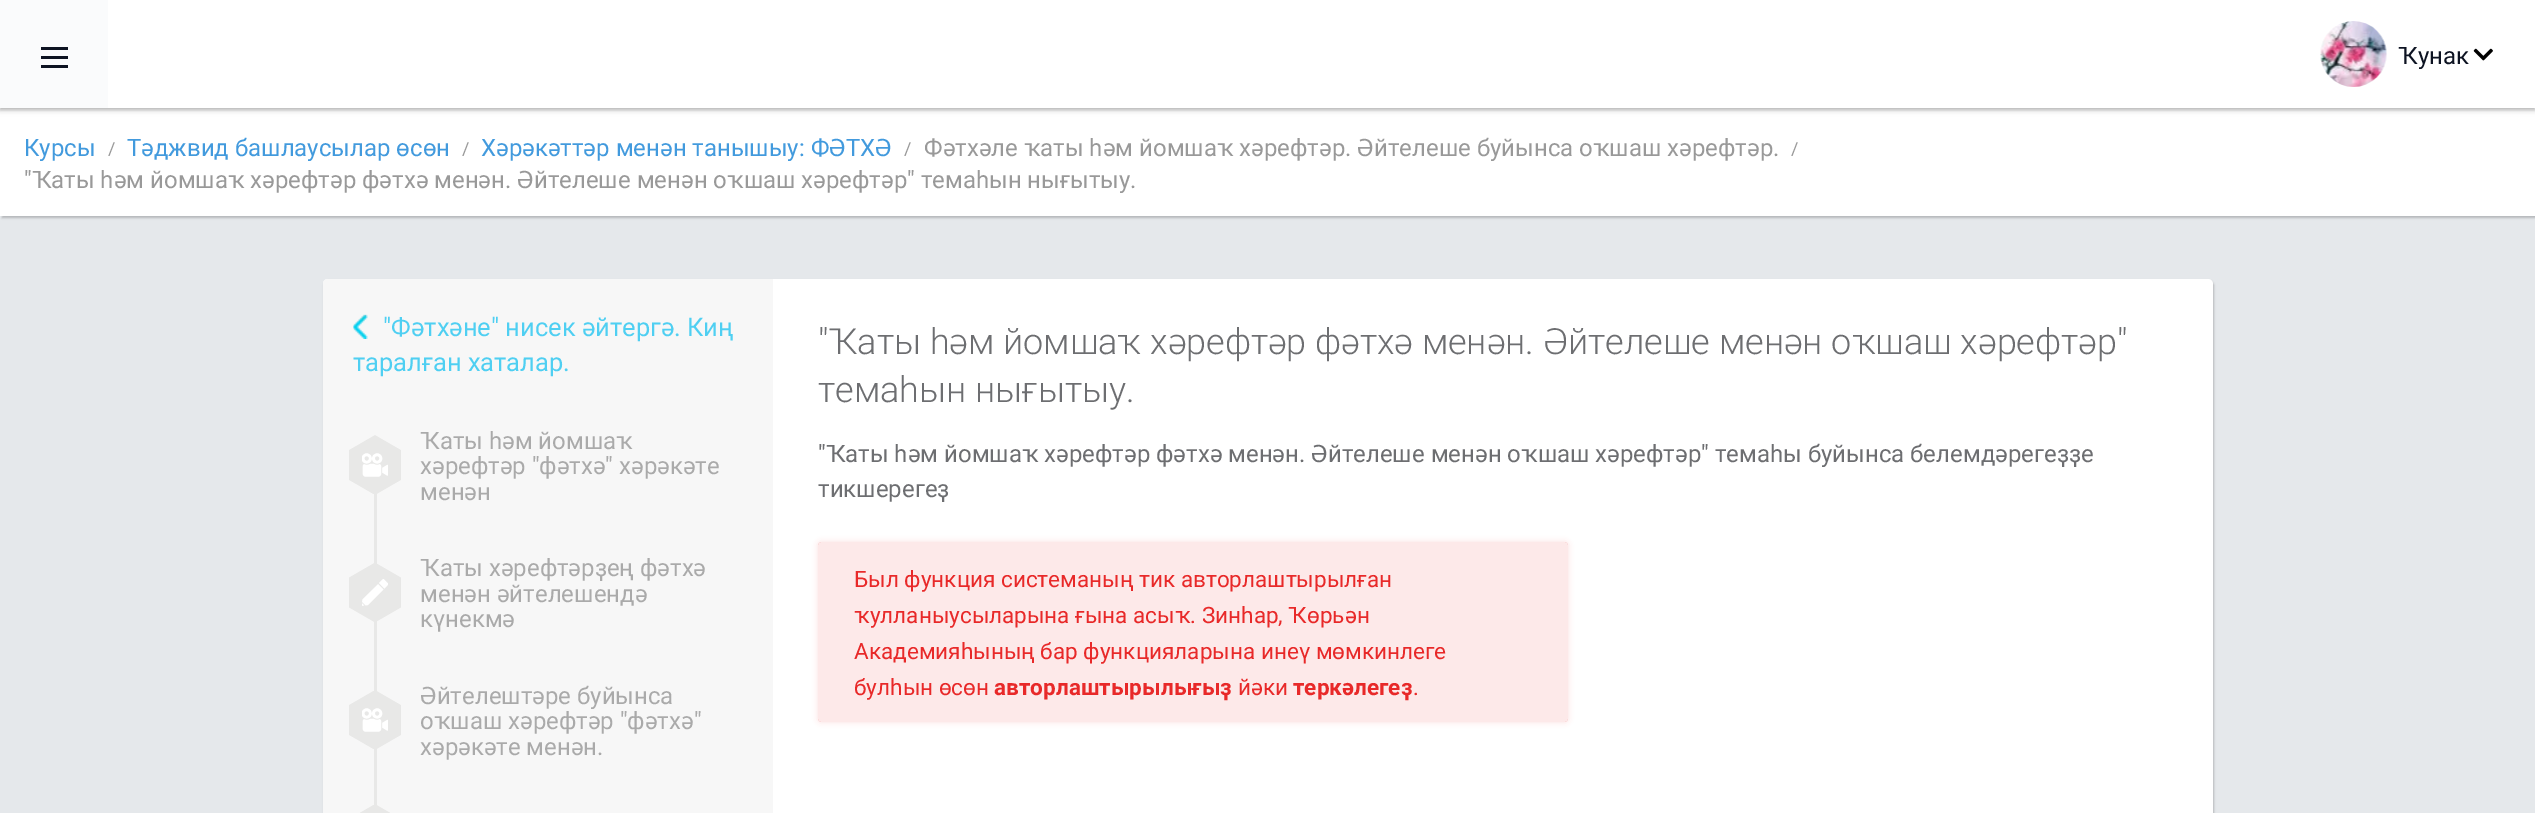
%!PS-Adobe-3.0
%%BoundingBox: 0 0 2535 813
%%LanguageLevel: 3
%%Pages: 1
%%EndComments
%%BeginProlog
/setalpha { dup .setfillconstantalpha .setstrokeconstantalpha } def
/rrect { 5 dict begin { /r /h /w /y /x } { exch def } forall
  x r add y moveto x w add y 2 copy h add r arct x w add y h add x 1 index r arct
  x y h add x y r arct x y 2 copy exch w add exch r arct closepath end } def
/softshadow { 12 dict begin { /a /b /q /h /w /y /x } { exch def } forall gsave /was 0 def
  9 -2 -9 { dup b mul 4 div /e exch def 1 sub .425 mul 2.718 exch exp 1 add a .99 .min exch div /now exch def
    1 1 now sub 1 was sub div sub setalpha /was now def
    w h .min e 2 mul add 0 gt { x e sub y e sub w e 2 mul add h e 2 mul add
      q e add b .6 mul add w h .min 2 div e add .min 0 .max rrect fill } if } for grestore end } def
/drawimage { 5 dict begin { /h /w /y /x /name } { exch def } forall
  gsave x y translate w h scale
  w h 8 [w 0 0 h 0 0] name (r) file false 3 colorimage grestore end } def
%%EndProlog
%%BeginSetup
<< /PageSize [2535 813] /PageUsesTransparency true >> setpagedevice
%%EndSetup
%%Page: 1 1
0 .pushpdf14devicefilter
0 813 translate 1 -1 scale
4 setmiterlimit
0.898 0.91 0.922 setrgbcolor
0 0 2535 813 rectfill
0 setgray
2 110 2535 108 0 1 0.2 softshadow
1 setgray
0 108 2535 108 rectfill
0 setgray
0 2 2535 108 0 1.5 0.2 softshadow
0.667 setgray
0 2 2535 108 0 3 0.5 softshadow
1 setgray
108 0 2427 108 rectfill
0.98 0.984 0.988 setrgbcolor
0 0 108 108 rectfill
0.051 0.075 0.133 setrgbcolor
41 47 27 3 rectfill
41 56 27 3 rectfill
41 65 27 3 rectfill
(images/1.raw) 2320 21 67 66 drawimage
(images/2.raw) 2473 48 20 13 drawimage
0 setgray
324 281 1890 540 5 1 0.2 softshadow
1 setgray
323 279 1890 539 5 rrect fill
0.969 setgray
newpath 328 279 moveto 773 279 lineto 773 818 lineto 328 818 lineto 325 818 323 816 323 813 curveto 323 284 lineto 323 281 325 279 328 279 curveto closepath fill
(images/3.raw) 353 314 15 25 drawimage
0.91 0.91 0.906 setrgbcolor
374 493 3 320 rectfill
(images/4.raw) 349 435 52 59 drawimage
(images/5.raw) 362 453 26 24 drawimage
(images/6.raw) 349 563 52 59 drawimage
(images/7.raw) 362 579 26 27 drawimage
(images/8.raw) 349 691 52 58 drawimage
(images/5.raw) 362 708 26 24 drawimage
(images/9.raw) 360 805 30 8 drawimage
gsave
newpath 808 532 moveto 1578 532 lineto 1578 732 lineto 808 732 lineto closepath 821 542 moveto 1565 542 lineto 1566.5 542 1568 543.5 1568 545 curveto 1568 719 lineto 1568 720.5 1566.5 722 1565 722 curveto 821 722 lineto 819.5 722 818 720.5 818 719 curveto 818 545 lineto 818 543.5 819.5 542 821 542 curveto closepath eoclip newpath
0.91 0.161 0.161 setrgbcolor
818 542 750 180 3 3 0.15 softshadow
grestore
0.15 setalpha
0.937 0.431 0.431 setrgbcolor
818 542 750 180 3 rrect fill
/Roboto-Regular [24 0 0 -24 0 0] selectfont
1 setalpha
0.051 0.075 0.133 setrgbcolor
2398 64 moveto (Ҡунак) show
0.259 0.604 0.867 setrgbcolor
24 156 moveto (Курсы) show
/Roboto-Regular [18 0 0 -18 0 0] selectfont
0.6 setgray
108 155 moveto (/) show
/Roboto-Regular [24 0 0 -24 0 0] selectfont
0.259 0.604 0.867 setrgbcolor
127 156 moveto (Тәджвид башлаусылар өсөн) show
/Roboto-Regular [18 0 0 -18 0 0] selectfont
0.6 setgray
462 155 moveto (/) show
/Roboto-Regular [24 0 0 -24 0 0] selectfont
0.259 0.604 0.867 setrgbcolor
481 156 moveto (Хәрәкәттәр менән танышыу: ФӘТХӘ) show
/Roboto-Regular [18 0 0 -18 0 0] selectfont
0.6 setgray
904 155 moveto (/) show
/Roboto-Regular [24 0 0 -24 0 0] selectfont
924 156 moveto (Фәтхәле ҡаты һәм йомшаҡ хәрефтәр. Әйтелеше буйынса оҡшаш хәрефтәр.) show
/Roboto-Regular [18 0 0 -18 0 0] selectfont
1791 155 moveto (/) show
/Roboto-Regular [24 0 0 -24 0 0] selectfont
24 188 moveto ("Ҡаты һәм йомшаҡ хәрефтәр фәтхә менән. Әйтелеше менән оҡшаш хәрефтәр" темаһын нығытыу.) show
/Roboto-Regular [25.5 0 0 -25.5 0 0] selectfont
0.31 0.812 0.949 setrgbcolor
383 336 moveto ("Фәтхәне" нисек әйтергә. Киң) show
353 371 moveto (таралған хаталар.) show
/Roboto-Regular [24 0 0 -24 0 0] selectfont
0.667 setgray
420 449 moveto (Ҡаты һәм йомшаҡ) show
420 474 moveto (хәрефтәр "фәтхә" хәрәкәте) show
420 500 moveto (менән) show
420 576 moveto (Ҡаты хәрефтәрҙең фәтхә) show
420 602 moveto (менән әйтелешендә) show
420 627 moveto (күнекмә) show
420 704 moveto (Әйтелештәре буйынса) show
420 729 moveto (оҡшаш хәрефтәр "фәтхә") show
420 755 moveto (хәрәкәте менән.) show
/Roboto-Light [36 0 0 -36 0 0] selectfont
0.427 0.431 0.443 setrgbcolor
818 354 moveto ("Ҡаты һәм йомшаҡ хәрефтәр фәтхә менән. Әйтелеше менән оҡшаш хәрефтәр") show
818 402 moveto (темаһын нығытыу.) show
/Roboto-Regular [24 0 0 -24 0 0] selectfont
818 462 moveto ("Ҡаты һәм йомшаҡ хәрефтәр фәтхә менән. Әйтелеше менән оҡшаш хәрефтәр" темаһы буйынса белемдәрегеҙҙе) show
818 497 moveto (тикшерегеҙ) show
/Roboto-Regular [22.55 0 0 -22.55 0 0] selectfont
0.91 0.161 0.161 setrgbcolor
854 587 moveto (Был функция системаның тик авторлаштырылған) show
854 623 moveto (ҡулланыусыларына ғына асыҡ. Зинһар, Ҡөрьән) show
854 659 moveto (Академияһының бар функцияларына инеү мөмкинлеге) show
854 695 moveto (булһын өсөн) show
/Roboto-Bold [22.55 0 0 -22.55 0 0] selectfont
994 695 moveto (авторлаштырылығыҙ) show
/Roboto-Regular [22.55 0 0 -22.55 0 0] selectfont
1238 695 moveto (йәки) show
/Roboto-Bold [22.55 0 0 -22.55 0 0] selectfont
1293 695 moveto (теркәлегеҙ) show
/Roboto-Regular [22.55 0 0 -22.55 0 0] selectfont
1413 695 moveto (.) show
.poppdf14devicefilter showpage
%%EOF
